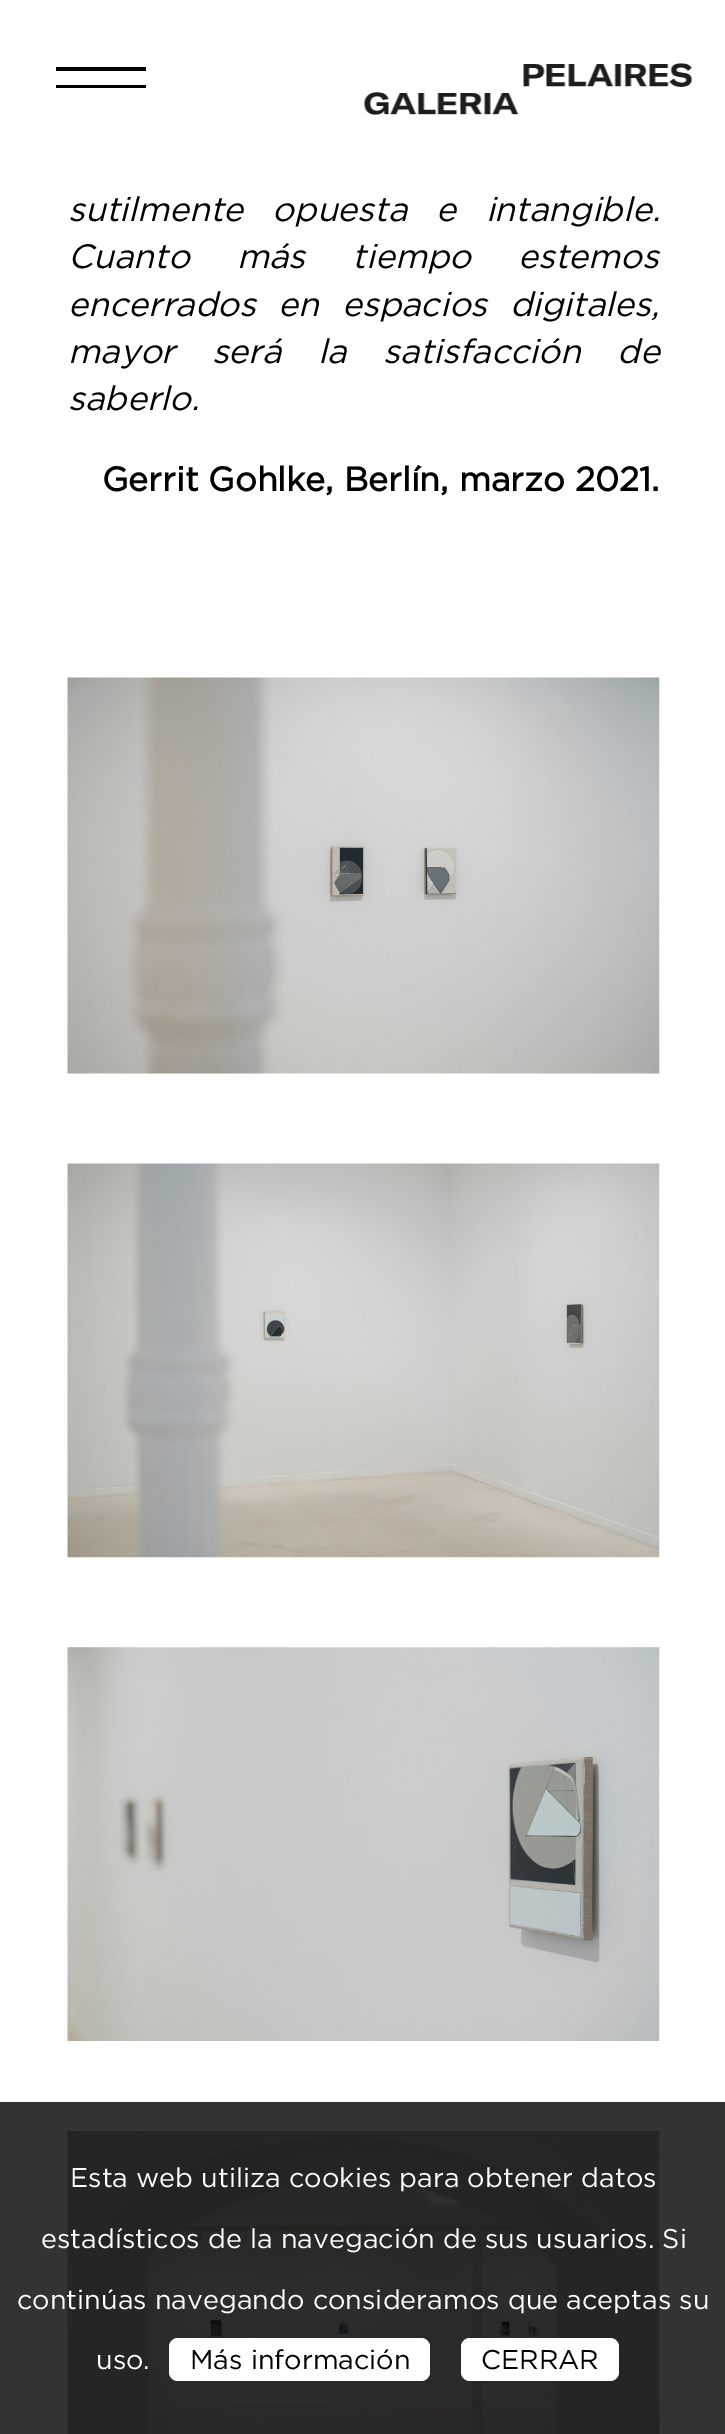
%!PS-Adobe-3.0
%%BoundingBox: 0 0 725 2434
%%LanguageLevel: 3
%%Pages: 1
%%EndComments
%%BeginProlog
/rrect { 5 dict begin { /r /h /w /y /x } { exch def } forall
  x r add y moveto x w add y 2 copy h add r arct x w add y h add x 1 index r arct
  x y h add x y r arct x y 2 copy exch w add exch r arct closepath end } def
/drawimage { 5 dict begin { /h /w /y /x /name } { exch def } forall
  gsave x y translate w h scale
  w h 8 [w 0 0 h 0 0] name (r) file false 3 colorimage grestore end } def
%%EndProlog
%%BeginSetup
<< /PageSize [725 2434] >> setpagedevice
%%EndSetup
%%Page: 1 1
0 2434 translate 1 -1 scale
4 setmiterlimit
1 setgray
0 0 725 2434 rectfill
0.2 setgray
0 2102 725 332 rectfill
0 setgray
56 67 90 4 rectfill
56 85 90 3 rectfill
(images/1.raw) 364 63 329 52 drawimage
(images/2.raw) 67 677 593 397 drawimage
(images/3.raw) 67 1163 593 395 drawimage
(images/4.raw) 67 1647 593 394 drawimage
(images/5.raw) 67 2131 593 303 drawimage
1 setgray
169 2338 261 43 9 rrect fill
461 2338 158 43 9 rrect fill
/Gotham-Italic [33.75 0 0 -33.75 0 0] selectfont
0 setgray
68 221 moveto 19 0 32 (sutilmente opuesta e intangible.) widthshow
68 268 moveto 37 0 32 (Cuanto más tiempo estemos) widthshow
68 316 moveto 12.5 0 32 (encerrados en espacios digitales,) widthshow
68 363 moveto 26.5 0 32 (mayor será la satisfacción de) widthshow
68 410 moveto (saberlo.) show
/Gotham-Bold [33.75 0 0 -33.75 0 0] selectfont
102 491 moveto (Gerrit Gohlke, Berlín, marzo 2021.) show
/Gotham-Regular [27 0 0 -27 0 0] selectfont
1 setgray
70 2187 moveto (Esta web utiliza cookies para obtener datos) show
41 2248 moveto (estadísticos de la navegación de sus usuarios. Si) show
17 2309 moveto (continúas navegando consideramos que aceptas su) show
96 2369 moveto (uso.) show
0 setgray
190 2369 moveto (Más información) show
481 2369 moveto (CERRAR) show
showpage
%%EOF
